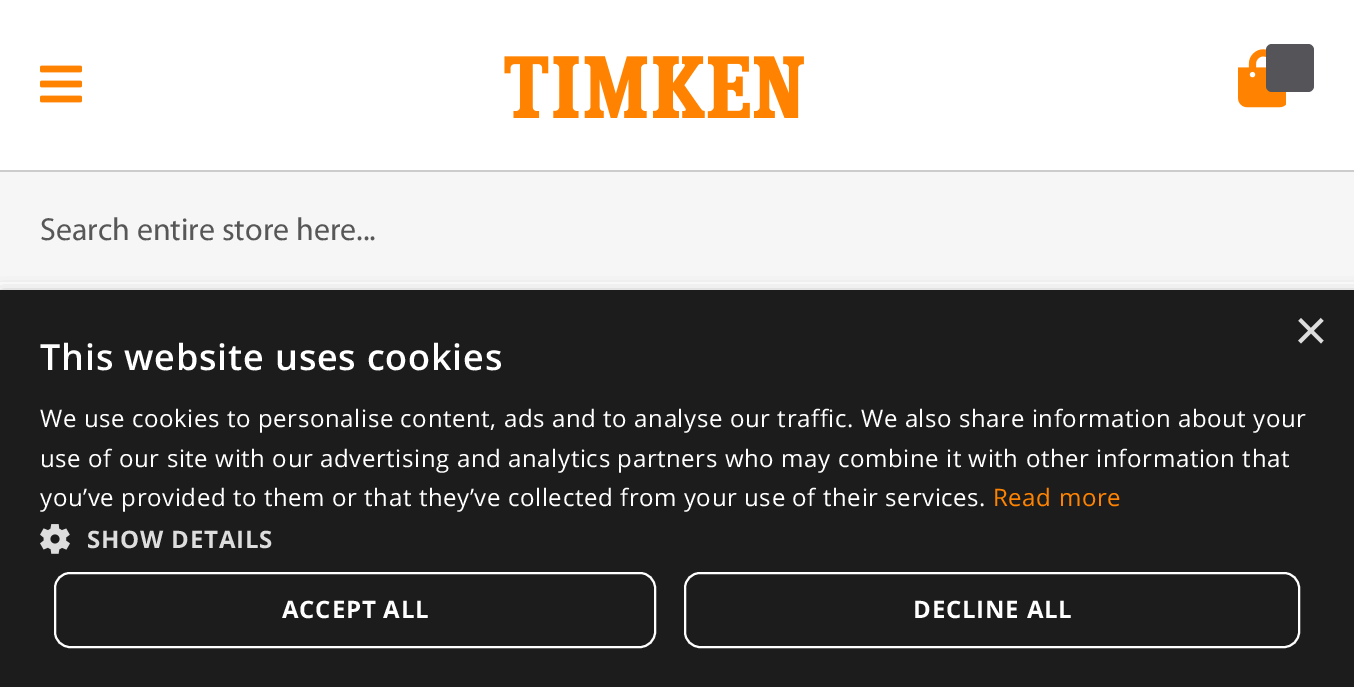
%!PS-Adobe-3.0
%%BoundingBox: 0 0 1354 687
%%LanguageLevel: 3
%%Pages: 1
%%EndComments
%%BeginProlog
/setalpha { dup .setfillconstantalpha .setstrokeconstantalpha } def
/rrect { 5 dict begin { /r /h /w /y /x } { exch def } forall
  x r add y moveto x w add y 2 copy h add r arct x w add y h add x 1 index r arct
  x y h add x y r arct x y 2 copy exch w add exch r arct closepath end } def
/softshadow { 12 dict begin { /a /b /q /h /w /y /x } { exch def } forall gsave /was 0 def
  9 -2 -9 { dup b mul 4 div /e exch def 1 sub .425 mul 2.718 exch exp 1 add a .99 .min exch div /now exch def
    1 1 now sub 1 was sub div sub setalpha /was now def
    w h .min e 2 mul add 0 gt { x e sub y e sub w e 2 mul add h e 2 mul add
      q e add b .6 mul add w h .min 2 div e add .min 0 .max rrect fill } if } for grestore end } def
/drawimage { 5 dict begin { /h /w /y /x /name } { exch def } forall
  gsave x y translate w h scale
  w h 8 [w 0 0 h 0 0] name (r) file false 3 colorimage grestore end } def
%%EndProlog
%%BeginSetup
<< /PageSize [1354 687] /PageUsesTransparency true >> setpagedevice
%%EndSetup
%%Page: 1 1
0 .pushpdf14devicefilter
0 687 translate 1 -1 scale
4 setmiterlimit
1 setgray
0 0 1354 687 rectfill
0.8 setgray
0 170 1354 2 rectfill
(images/1.raw) 40 65 42 38 drawimage
(images/2.raw) 504 56 300 62 drawimage
(images/3.raw) 1238 49 48 59 drawimage
0.333 0.333 0.349 setrgbcolor
1266 44 48 48 6 rrect fill
0.965 setgray
0 172 1354 110 rectfill
0 setgray
2 294 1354 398 0 8 0.35 softshadow
0.11 setgray
0 290 1354 397 rectfill
(images/4.raw) 40 524 30 30 drawimage
1 setgray
2 setlinewidth
55 573 600 74 15 rrect stroke
685 573 614 74 15 rrect stroke
/Myriad-Regular [32 0 0 -32 0 0] selectfont
0.341 setgray
40 240 moveto (Search entire store here...) show
/LiberationSans-Regular [58 0 0 -58 0 0] selectfont
0.867 setgray
1294 350 moveto (×) show
/OpenSans-SemiBold [36 0 0 -36 0 0] selectfont
1 setgray
40 370 moveto 0.8 0 (This website uses cookies) ashow
/OpenSans-Regular [24 0 0 -24 0 0] selectfont
40 427 moveto 0.6 0 (We use cookies to personalise content, ads and to analyse our traffic. We also share information about your) ashow
40 467 moveto 0.6 0 (use of our site with our advertising and analytics partners who may combine it with other information that) ashow
40 506 moveto 0.6 0 (you’ve provided to them or that they’ve collected from your use of their services.) ashow
1 0.514 0 setrgbcolor
993 506 moveto 0.6 0 (Read more) ashow
/OpenSans-Bold [24 0 0 -24 0 0] selectfont
0.867 setgray
87 548 moveto 0.8 0 (SHOW DETAILS) ashow
1 setgray
282 618 moveto 0.8 0 (ACCEPT ALL) ashow
913 618 moveto 0.8 0 (DECLINE ALL) ashow
.poppdf14devicefilter showpage
%%EOF
